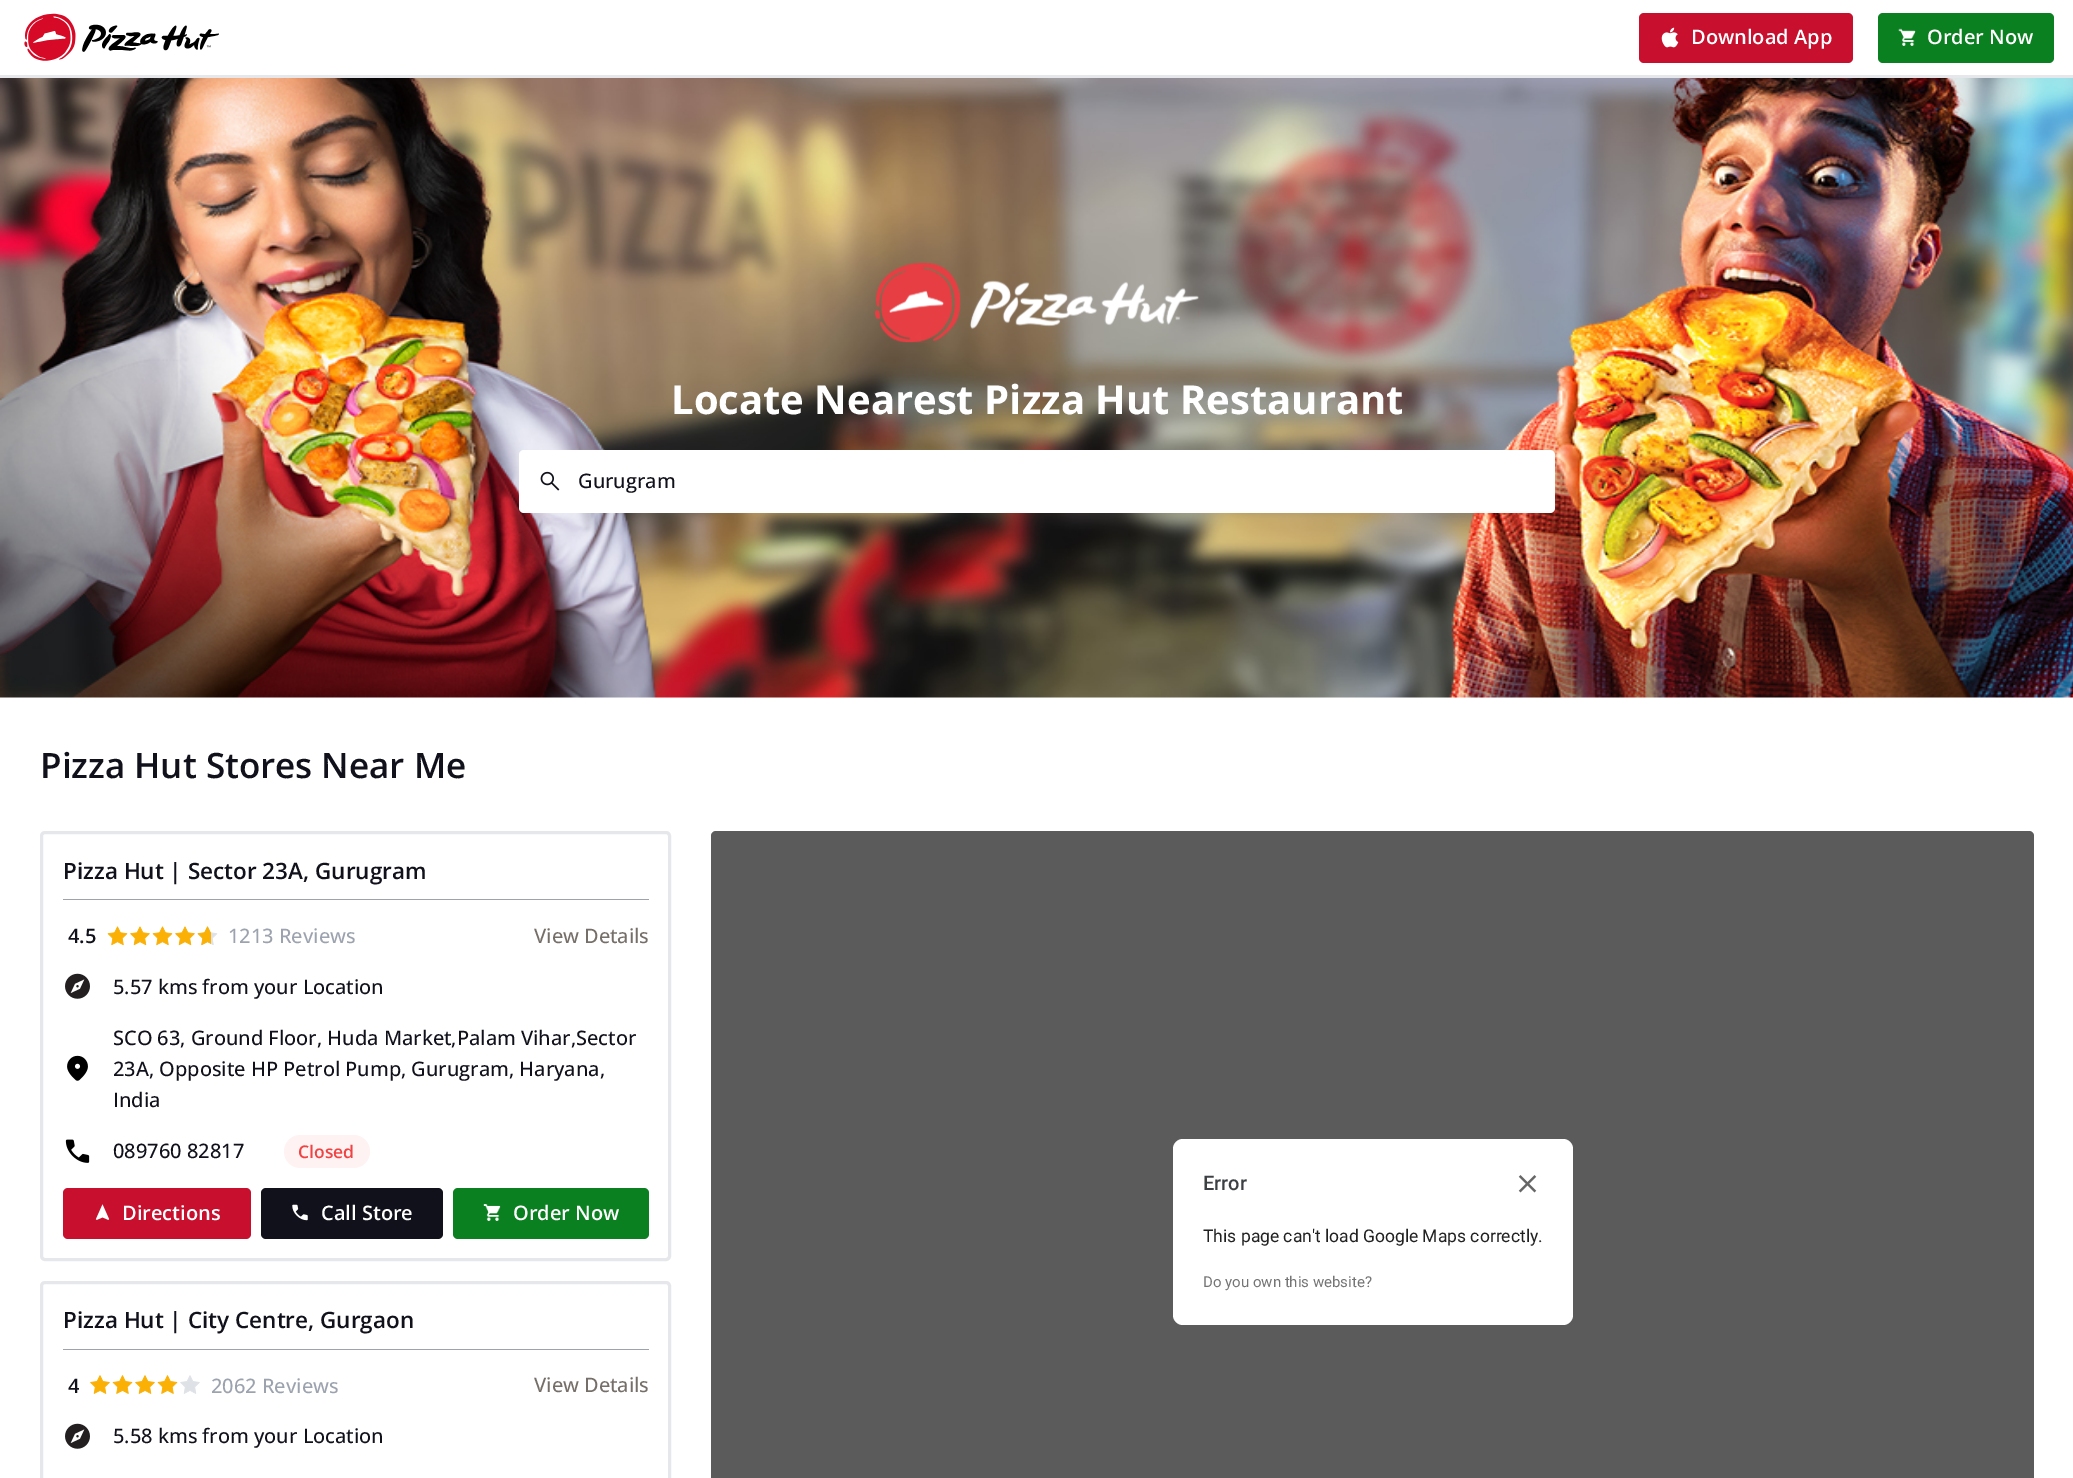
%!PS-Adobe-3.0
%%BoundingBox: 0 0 2073 1478
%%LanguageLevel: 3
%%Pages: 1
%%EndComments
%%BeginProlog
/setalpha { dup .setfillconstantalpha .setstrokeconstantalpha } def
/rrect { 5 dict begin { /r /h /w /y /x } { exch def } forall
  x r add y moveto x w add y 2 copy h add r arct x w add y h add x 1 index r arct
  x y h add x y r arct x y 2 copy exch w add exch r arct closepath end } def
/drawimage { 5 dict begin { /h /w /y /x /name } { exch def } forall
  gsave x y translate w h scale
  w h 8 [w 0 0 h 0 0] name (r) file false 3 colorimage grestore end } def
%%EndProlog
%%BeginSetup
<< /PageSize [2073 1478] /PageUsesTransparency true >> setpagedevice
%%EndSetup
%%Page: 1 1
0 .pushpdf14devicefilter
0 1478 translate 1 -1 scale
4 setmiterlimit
1 setgray
0 0 2073 1478 rectfill
0.898 0.906 0.922 setrgbcolor
0 75 2073 3 rectfill
(images/1.raw) 24 13 195 48 drawimage
0.784 0.063 0.18 setrgbcolor
1639 13 214 50 5 rrect fill
(images/2.raw) 1661 27 18 21 drawimage
0.039 0.502 0.125 setrgbcolor
1878 13 176 50 5 rrect fill
(images/3.raw) 1898 28 18 18 drawimage
(images/4.raw) 0 78 2073 620 drawimage
(images/5.raw) 875 263 324 80 drawimage
1 setgray
519 450 1036 63 5 rrect fill
(images/6.raw) 540 471 20 20 drawimage
0.898 0.906 0.922 setrgbcolor
3 setlinewidth
41.5 832.5 628 427 3.5 rrect stroke
0.612 0.639 0.686 setrgbcolor
63 899 586 1 rectfill
(images/7.raw) 107 926 21 20 drawimage
(images/8.raw) 130 926 20 20 drawimage
(images/7.raw) 152 926 21 20 drawimage
(images/8.raw) 175 926 20 20 drawimage
(images/9.raw) 197 926 21 19 drawimage
(images/10.raw) 197 926 14 20 drawimage
(images/11.raw) 65 973 25 26 drawimage
(images/12.raw) 67 1055 21 26 drawimage
(images/13.raw) 65 1139 25 24 drawimage
0.996 0.949 0.949 setrgbcolor
284 1135 86 33 16.5 rrect fill
0.784 0.063 0.18 setrgbcolor
63 1188 188 51 5 rrect fill
(images/14.raw) 95 1204 15 16 drawimage
0.067 0.067 0.11 setrgbcolor
261 1188 182 51 5 rrect fill
(images/15.raw) 292 1204 16 17 drawimage
0.039 0.502 0.125 setrgbcolor
453 1188 196 51 5 rrect fill
(images/16.raw) 483 1204 18 17 drawimage
0.898 0.906 0.922 setrgbcolor
41.5 1282.5 628 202 3.5 rrect stroke
0.612 0.639 0.686 setrgbcolor
63 1349 586 1 rectfill
(images/17.raw) 90 1375 20 19 drawimage
(images/18.raw) 112 1375 21 19 drawimage
(images/17.raw) 135 1375 20 19 drawimage
(images/18.raw) 157 1375 21 19 drawimage
(images/19.raw) 180 1375 20 19 drawimage
(images/11.raw) 65 1423 25 26 drawimage
0.898 0.89 0.875 setrgbcolor
711 831 1323 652 5 rrect fill
0.7 setalpha
0.125 0.129 0.141 setrgbcolor
711 831 1323 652 5 rrect fill
1 setalpha
1 setgray
1173 1139 400 186 10 rrect fill
(images/20.raw) 1518 1175 19 18 drawimage
/OpenSans-SemiBold [20 0 0 -20 0 0] selectfont
1691 44 moveto (Download App) show
1927 44 moveto (Order Now) show
/OpenSans-Bold [40 0 0 -40 0 0] selectfont
671 414 moveto (Locate Nearest Pizza Hut Restaurant) show
/OpenSans-Medium [20 0 0 -20 0 0] selectfont
0.067 0.067 0.11 setrgbcolor
578 488 moveto (Gurugram) show
/OpenSans-SemiBold [35 0 0 -35 0 0] selectfont
40 778 moveto (Pizza Hut Stores Near Me) show
/OpenSans-SemiBold [22.5 0 0 -22.5 0 0] selectfont
63 879 moveto (Pizza Hut | Sector 23A, Gurugram) show
/OpenSans-SemiBold [20 0 0 -20 0 0] selectfont
68 943 moveto (4.5) show
/OpenSans-Medium [20 0 0 -20 0 0] selectfont
0.612 0.639 0.686 setrgbcolor
228 943 moveto (1213 Reviews) show
0.463 0.435 0.412 setrgbcolor
534 943 moveto (View Details) show
0.067 0.067 0.11 setrgbcolor
113 994 moveto (5.57 kms from your Location) show
113 1045 moveto (SCO 63, Ground Floor, Huda Market,Palam Vihar,Sector) show
113 1076 moveto (23A, Opposite HP Petrol Pump, Gurugram, Haryana,) show
113 1107 moveto (India) show
113 1158 moveto (089760 82817) show
/OpenSans-SemiBold [17.5 0 0 -17.5 0 0] selectfont
0.937 0.267 0.267 setrgbcolor
298 1158 moveto (Closed) show
/OpenSans-SemiBold [20 0 0 -20 0 0] selectfont
1 setgray
122 1220 moveto (Directions) show
321 1220 moveto (Call Store) show
513 1220 moveto (Order Now) show
/OpenSans-SemiBold [22.5 0 0 -22.5 0 0] selectfont
0.067 0.067 0.11 setrgbcolor
63 1328 moveto (Pizza Hut | City Centre, Gurgaon) show
/OpenSans-SemiBold [20 0 0 -20 0 0] selectfont
68 1393 moveto (4) show
/OpenSans-Medium [20 0 0 -20 0 0] selectfont
0.612 0.639 0.686 setrgbcolor
211 1393 moveto (2062 Reviews) show
0.463 0.435 0.412 setrgbcolor
534 1392 moveto (View Details) show
0.067 0.067 0.11 setrgbcolor
113 1443 moveto (5.58 kms from your Location) show
/Roboto-Medium [20 0 0 -20 0 0] selectfont
0.235 0.251 0.263 setrgbcolor
1203 1190 moveto (Error) show
/Roboto-Regular [17.5 0 0 -17.5 0 0] selectfont
0.129 setgray
1203 1242 moveto (This page can't load Google Maps correctly.) show
/Roboto-Regular [15 0 0 -15 0 0] selectfont
0.459 setgray
1203 1287 moveto (Do you own this website?) show
.poppdf14devicefilter showpage
%%EOF
